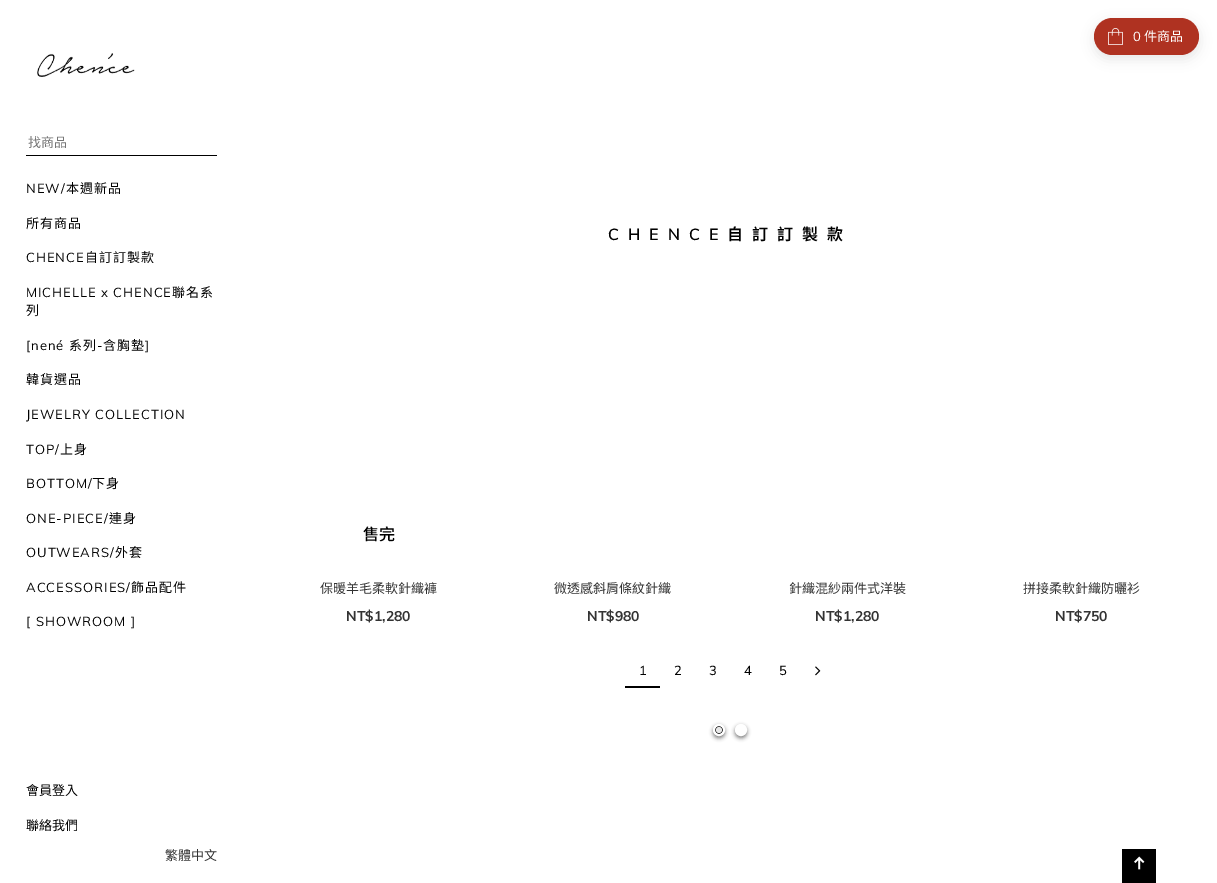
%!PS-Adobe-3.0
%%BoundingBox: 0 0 1217 883
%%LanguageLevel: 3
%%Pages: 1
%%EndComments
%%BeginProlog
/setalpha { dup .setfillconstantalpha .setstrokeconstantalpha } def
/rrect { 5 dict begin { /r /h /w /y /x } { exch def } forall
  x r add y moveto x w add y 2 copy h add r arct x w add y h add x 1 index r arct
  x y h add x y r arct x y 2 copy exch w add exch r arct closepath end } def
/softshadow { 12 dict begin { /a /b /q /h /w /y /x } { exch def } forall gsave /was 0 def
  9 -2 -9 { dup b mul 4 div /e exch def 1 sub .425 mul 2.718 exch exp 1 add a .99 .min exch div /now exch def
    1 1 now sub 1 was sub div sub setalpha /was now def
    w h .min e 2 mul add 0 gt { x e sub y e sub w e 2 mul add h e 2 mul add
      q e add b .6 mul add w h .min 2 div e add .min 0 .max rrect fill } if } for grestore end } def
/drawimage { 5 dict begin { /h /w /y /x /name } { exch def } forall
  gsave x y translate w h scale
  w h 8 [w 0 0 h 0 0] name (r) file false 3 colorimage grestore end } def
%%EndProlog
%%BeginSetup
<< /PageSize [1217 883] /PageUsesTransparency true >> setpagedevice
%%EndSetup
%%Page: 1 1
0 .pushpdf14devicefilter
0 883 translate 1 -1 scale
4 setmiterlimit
1 setgray
0 0 1217 883 rectfill
0 setgray
1094 22 105 37 18.5 6 0.1 softshadow
0.686 0.196 0.129 setrgbcolor
1094 18 105 37 18.5 rrect fill
(images/1.raw) 1108 28 15 17 drawimage
(images/2.raw) 37 53 98 24 drawimage
0 setgray
26 155 191 1 rectfill
625 686 35 2 rectfill
(images/3.raw) 815 666 6 10 drawimage
713 726 12 12 6 2 0.5 softshadow
0.9 setalpha
newpath 719 730 5 0 360 arc closepath fill
1 setalpha
1 setgray
2 setlinewidth
newpath 719 730 5 0 360 arc closepath stroke
0.91 setgray
newpath 719 730 3 0 360 arc closepath fill
gsave
newpath 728 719 moveto 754 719 lineto 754 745 lineto 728 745 lineto closepath 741 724 moveto 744.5 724 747 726.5 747 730 curveto 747 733.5 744.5 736 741 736 curveto 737.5 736 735 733.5 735 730 curveto 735 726.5 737.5 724 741 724 curveto closepath eoclip newpath
0 setgray
735 726 12 12 6 2 0.5 softshadow
grestore
1 setgray
newpath 741 730 5 0 360 arc closepath stroke
0 setgray
1122 849 34 34 rectfill
(images/4.raw) 1134 856 11 14 drawimage
/Muli-Regular [13 0 0 -13 0 0] selectfont
1 setgray
1133 41 moveto (0) show
/NotoSansTC-Regular [13 0 0 -13 0 0] selectfont
1144 41 moveto (件商品) show
0.459 setgray
28 147 moveto (找商品) show
/Muli-Regular [13 0 0 -13 0 0] selectfont
0 setgray
26 193 moveto 1 0 (NEW/) ashow
/NotoSansTC-Regular [13 0 0 -13 0 0] selectfont
66 193 moveto 1 0 (本週新品) ashow
26 228 moveto 1 0 (所有商品) ashow
/Muli-Regular [13 0 0 -13 0 0] selectfont
26 262 moveto 1 0 (CHENCE) ashow
/NotoSansTC-Regular [13 0 0 -13 0 0] selectfont
85 262 moveto 1 0 (自訂訂製款) ashow
/Muli-Regular [13 0 0 -13 0 0] selectfont
26 297 moveto 1 0 (MICHELLE x CHENCE) ashow
/NotoSansTC-Regular [13 0 0 -13 0 0] selectfont
172 297 moveto 1 0 (聯名系) ashow
26 315 moveto 1 0 (列) ashow
/Muli-Regular [13 0 0 -13 0 0] selectfont
26 350 moveto 1 0 ([nené) ashow
/NotoSansTC-Regular [13 0 0 -13 0 0] selectfont
69 350 moveto 1 0 (系列) ashow
/Muli-Regular [13 0 0 -13 0 0] selectfont
97 350 moveto 1 0 (-) ashow
/NotoSansTC-Regular [13 0 0 -13 0 0] selectfont
103 350 moveto 1 0 (含胸墊) ashow
/Muli-Regular [13 0 0 -13 0 0] selectfont
145 350 moveto 1 0 (]) ashow
/NotoSansTC-Regular [13 0 0 -13 0 0] selectfont
26 384 moveto 1 0 (韓貨選品) ashow
/Muli-Regular [13 0 0 -13 0 0] selectfont
26 419 moveto 1 0 (JEWELRY COLLECTION) ashow
26 454 moveto 1 0 (TOP/) ashow
/NotoSansTC-Regular [13 0 0 -13 0 0] selectfont
60 454 moveto 1 0 (上身) ashow
/Muli-Regular [13 0 0 -13 0 0] selectfont
26 488 moveto 1 0 (BOTTOM/) ashow
/NotoSansTC-Regular [13 0 0 -13 0 0] selectfont
92 488 moveto 1 0 (下身) ashow
/Muli-Regular [13 0 0 -13 0 0] selectfont
26 523 moveto 1 0 (ONE-PIECE/) ashow
/NotoSansTC-Regular [13 0 0 -13 0 0] selectfont
109 523 moveto 1 0 (連身) ashow
/Muli-Regular [13 0 0 -13 0 0] selectfont
26 557 moveto 1 0 (OUTWEARS/) ashow
/NotoSansTC-Regular [13 0 0 -13 0 0] selectfont
115 557 moveto 1 0 (外套) ashow
/Muli-Regular [13 0 0 -13 0 0] selectfont
26 592 moveto 1 0 (ACCESSORIES/) ashow
/NotoSansTC-Regular [13 0 0 -13 0 0] selectfont
131 592 moveto 1 0 (飾品配件) ashow
/Muli-Regular [13 0 0 -13 0 0] selectfont
26 626 moveto 1 0 ([ SHOWROOM ]) ashow
/NotoSansTC-Regular [13 0 0 -13 0 0] selectfont
26 795 moveto (會員登入) show
26 830 moveto (聯絡我們) show
0.2 setgray
165 860 moveto (繁體中文) show
/Muli-SemiBold [16 0 0 -16 0 0] selectfont
0 setgray
608 240 moveto 9 0 (CHENCE) ashow
/NotoSansTC-SemiBold [16 0 0 -16 0 0] selectfont
727 240 moveto 9 0 (自訂訂製款) ashow
/NotoSansTC-Medium [16 0 0 -16 0 0] selectfont
363 540 moveto (售完) show
/NotoSansTC-Regular [13 0 0 -13 0 0] selectfont
0.2 setgray
320 593 moveto (保暖羊毛柔軟針織褲) show
/Muli-Bold [14 0 0 -14 0 0] selectfont
346 621 moveto (NT$1,280) show
/NotoSansTC-Regular [13 0 0 -13 0 0] selectfont
554 593 moveto (微透感斜肩條紋針織) show
/Muli-Bold [14 0 0 -14 0 0] selectfont
587 621 moveto (NT$980) show
/NotoSansTC-Regular [13 0 0 -13 0 0] selectfont
789 593 moveto (針織混紗兩件式洋裝) show
/Muli-Bold [14 0 0 -14 0 0] selectfont
815 621 moveto (NT$1,280) show
/NotoSansTC-Regular [13 0 0 -13 0 0] selectfont
1023 593 moveto (拼接柔軟針織防曬衫) show
/Muli-Bold [14 0 0 -14 0 0] selectfont
1055 621 moveto (NT$750) show
/Muli-Medium [13 0 0 -13 0 0] selectfont
0 setgray
639 675 moveto (1) show
674 675 moveto (2) show
709 675 moveto (3) show
744 675 moveto (4) show
779 675 moveto (5) show
.poppdf14devicefilter showpage
%%EOF
